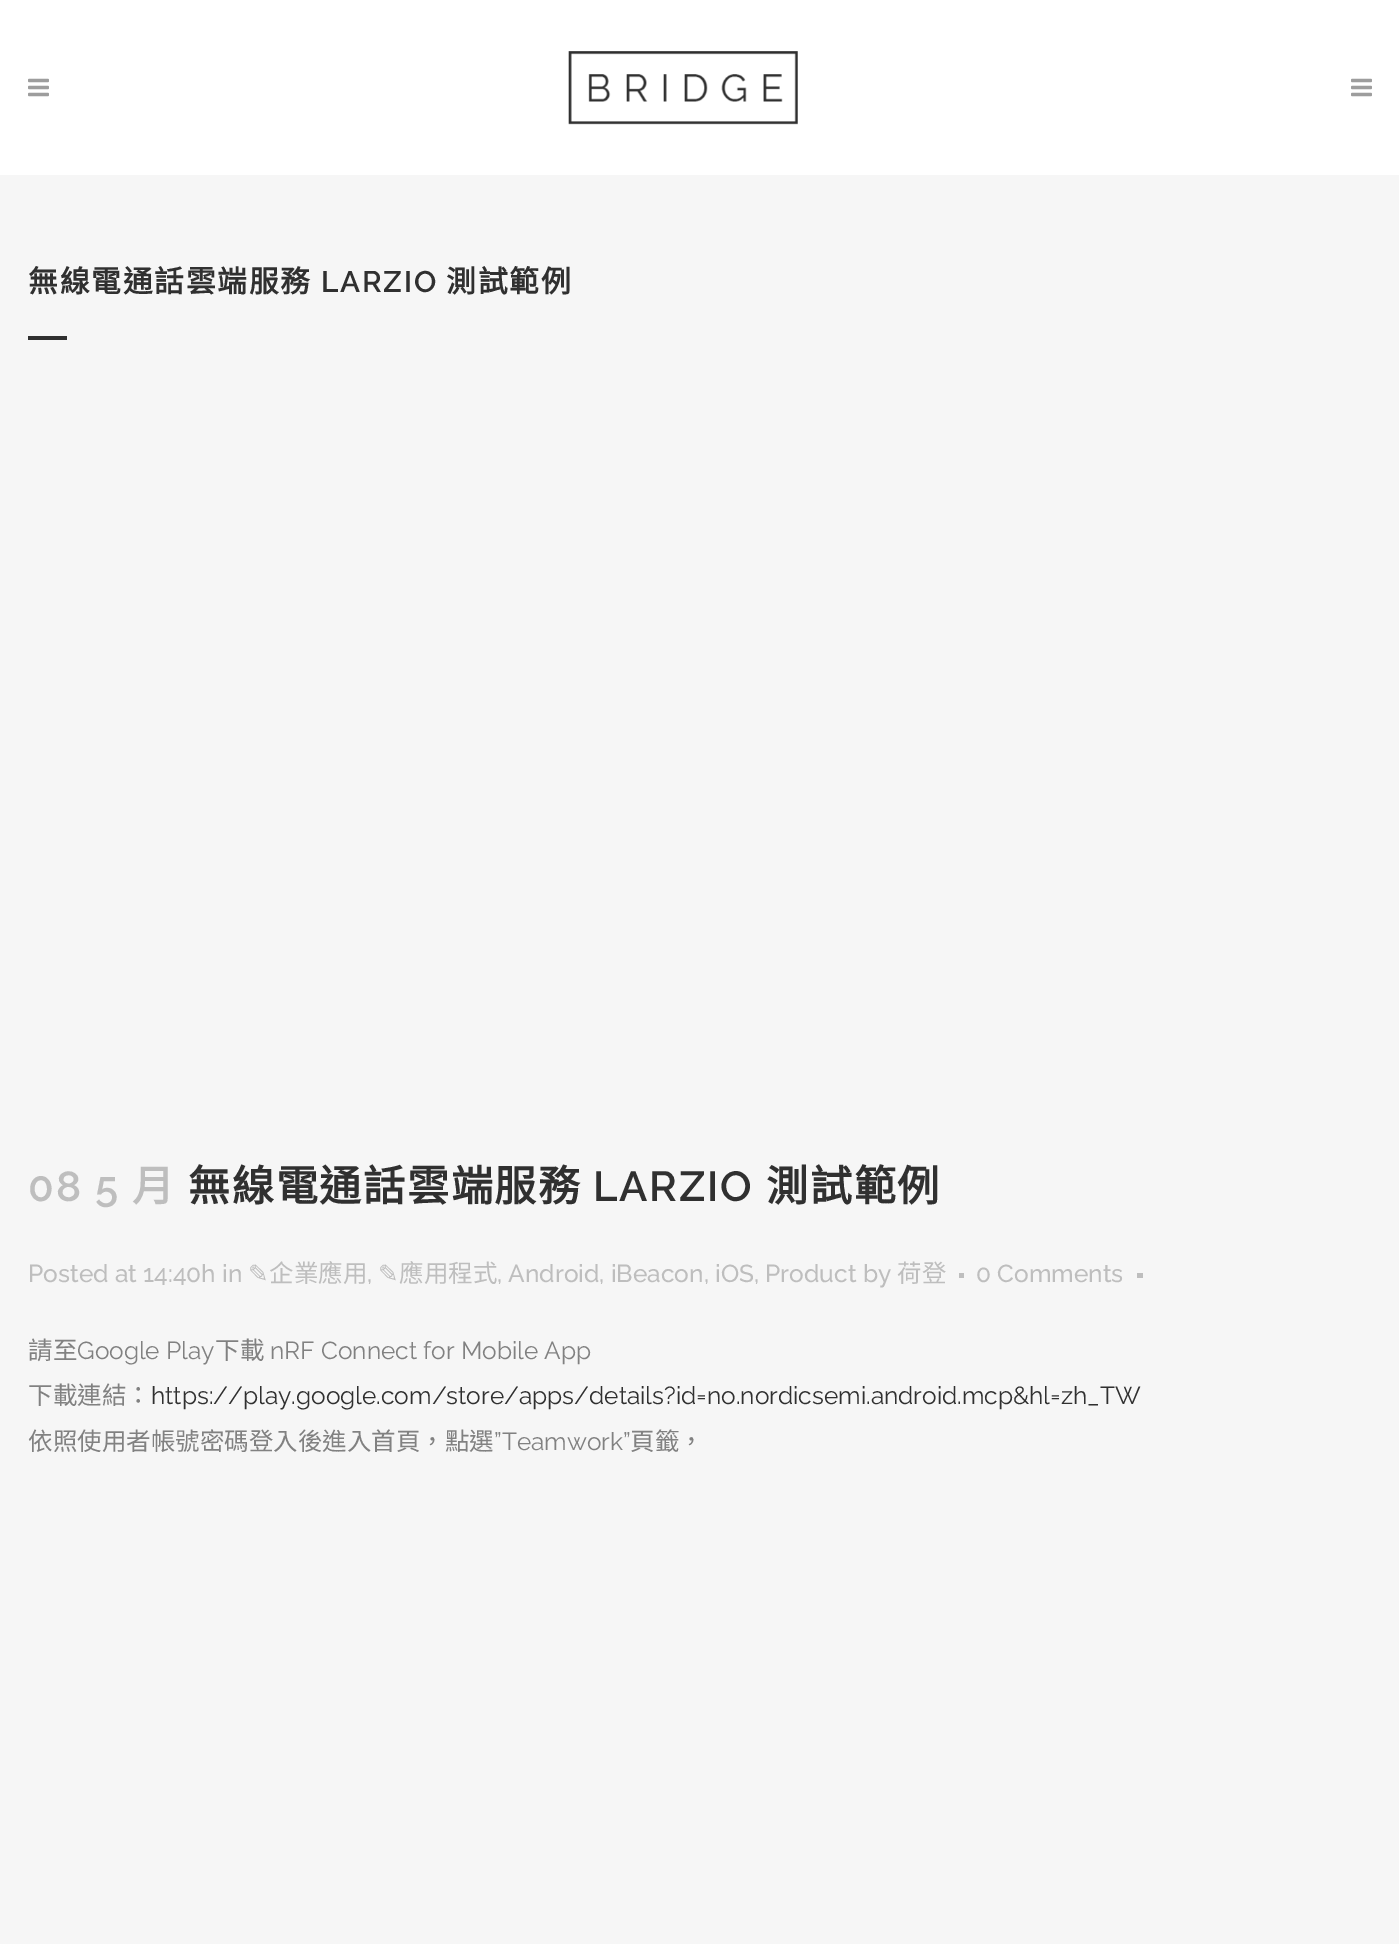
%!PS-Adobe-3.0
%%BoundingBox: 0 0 1399 1944
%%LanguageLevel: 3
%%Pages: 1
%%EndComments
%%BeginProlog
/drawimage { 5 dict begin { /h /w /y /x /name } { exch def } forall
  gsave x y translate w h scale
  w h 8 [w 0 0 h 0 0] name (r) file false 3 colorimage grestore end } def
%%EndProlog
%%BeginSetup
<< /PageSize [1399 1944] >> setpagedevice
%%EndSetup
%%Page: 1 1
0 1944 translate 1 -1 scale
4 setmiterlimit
0.965 setgray
0 0 1399 1944 rectfill
1 setgray
0 0 1399 175 rectfill
(images/1.raw) 28 78 21 19 drawimage
(images/2.raw) 568 51 230 74 drawimage
(images/1.raw) 1351 78 21 19 drawimage
0.188 setgray
28 336 39 4 rectfill
0.745 setgray
959 1273 5 5 rectfill
1137 1273 6 5 rectfill
/NotoSansCJKTC-Bold [29.75 0 0 -29.75 0 0] selectfont
0.188 setgray
28 292 moveto 1.75 0 (無線電通話雲端服務) ashow
/Raleway-SemiBold [29.75 0 0 -29.75 0 0] selectfont
321 292 moveto 1.75 0 (LARZIO) ashow
/NotoSansCJKTC-Bold [29.75 0 0 -29.75 0 0] selectfont
446 292 moveto 1.75 0 (測試範例) ashow
/Raleway-SemiBold [42 0 0 -42 0 0] selectfont
0.745 setgray
28 1201 moveto 1.75 0 (08 5) ashow
/NotoSansCJKTC-Bold [42 0 0 -42 0 0] selectfont
132 1201 moveto 1.75 0 (月) ashow
0.188 setgray
188 1201 moveto 1.75 0 (無線電通話雲端服務) ashow
/Raleway-SemiBold [42 0 0 -42 0 0] selectfont
593 1201 moveto 1.75 0 (LARZIO) ashow
/NotoSansCJKTC-Bold [42 0 0 -42 0 0] selectfont
766 1201 moveto 1.75 0 (測試範例) ashow
/Raleway-Medium [24.5 0 0 -24.5 0 0] selectfont
0.745 setgray
28 1282 moveto (Posted at 14:40h in) show
/DejaVuSans-Regular [24.5 0 0 -24.5 0 0] selectfont
248 1282 moveto (✎) show
/NotoSansCJKTC-Regular [24.5 0 0 -24.5 0 0] selectfont
269 1282 moveto (企業應用) show
/DejaVuSans-Regular [24.5 0 0 -24.5 0 0] selectfont
378 1282 moveto (✎) show
/NotoSansCJKTC-Regular [24.5 0 0 -24.5 0 0] selectfont
399 1282 moveto (應用程式) show
/Raleway-Medium [24.5 0 0 -24.5 0 0] selectfont
497 1282 moveto (, Android, iBeacon, iOS, Product by) show
/NotoSansCJKTC-Regular [24.5 0 0 -24.5 0 0] selectfont
897 1282 moveto (荷登) show
/Raleway-Medium [24.5 0 0 -24.5 0 0] selectfont
976 1282 moveto (0 Comments) show
367 1282 moveto (,) show
/NotoSansCJKTC-Regular [24.5 0 0 -24.5 0 0] selectfont
0.506 setgray
28 1359 moveto (請至) show
/Raleway-Regular [24.5 0 0 -24.5 0 0] selectfont
77 1359 moveto (Google Play) show
/NotoSansCJKTC-Regular [24.5 0 0 -24.5 0 0] selectfont
215 1359 moveto (下載) show
/Raleway-Regular [24.5 0 0 -24.5 0 0] selectfont
270 1359 moveto (nRF Connect for Mobile App) show
/NotoSansCJKTC-Regular [24.5 0 0 -24.5 0 0] selectfont
28 1404 moveto (下載連結：) show
/Raleway-Regular [24.5 0 0 -24.5 0 0] selectfont
0.188 setgray
151 1404 moveto (https://play.google.com/store/apps/details?id=no.nordicsemi.android.mcp&hl=zh_TW) show
/NotoSansCJKTC-Regular [24.5 0 0 -24.5 0 0] selectfont
0.506 setgray
28 1450 moveto (依照使用者帳號密碼登入後進入首頁，點選) show
/Raleway-Regular [24.5 0 0 -24.5 0 0] selectfont
494 1450 moveto (”Teamwork”) show
/NotoSansCJKTC-Regular [24.5 0 0 -24.5 0 0] selectfont
630 1450 moveto (頁籤，) show
showpage
%%EOF
